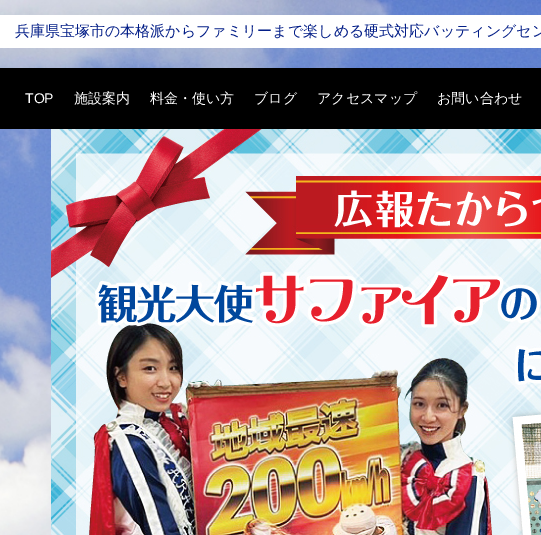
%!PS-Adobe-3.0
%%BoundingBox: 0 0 541 535
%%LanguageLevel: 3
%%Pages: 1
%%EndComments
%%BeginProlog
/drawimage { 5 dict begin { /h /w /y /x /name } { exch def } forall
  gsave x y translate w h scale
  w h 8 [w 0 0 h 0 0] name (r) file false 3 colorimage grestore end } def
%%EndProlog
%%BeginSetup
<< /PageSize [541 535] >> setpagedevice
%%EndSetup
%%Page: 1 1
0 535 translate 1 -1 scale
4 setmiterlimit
1 setgray
0 0 541 535 rectfill
(images/1.raw) 0 0 541 535 drawimage
0 15 541 33 rectfill
0 setgray
0 68 541 61 rectfill
(images/2.raw) 51 129 490 406 drawimage
/WenQuanYiZenHei-Medium [15 0 0 -15 0 0] selectfont
0.016 0.122 0.533 setrgbcolor
15 36 moveto (兵庫県宝塚市の本格派からファミリーまで楽しめる硬式対応バッティングセン) show
/LiberationSans-Regular [14 0 0 -14 0 0] selectfont
1 setgray
25 103 moveto (TOP) show
/WenQuanYiZenHei-Medium [14 0 0 -14 0 0] selectfont
74 103 moveto (施設案内) show
150 103 moveto (料金・使い方) show
254 103 moveto (ブログ) show
317 103 moveto (アクセスマップ) show
437 103 moveto (お問い合わせ) show
showpage
%%EOF
